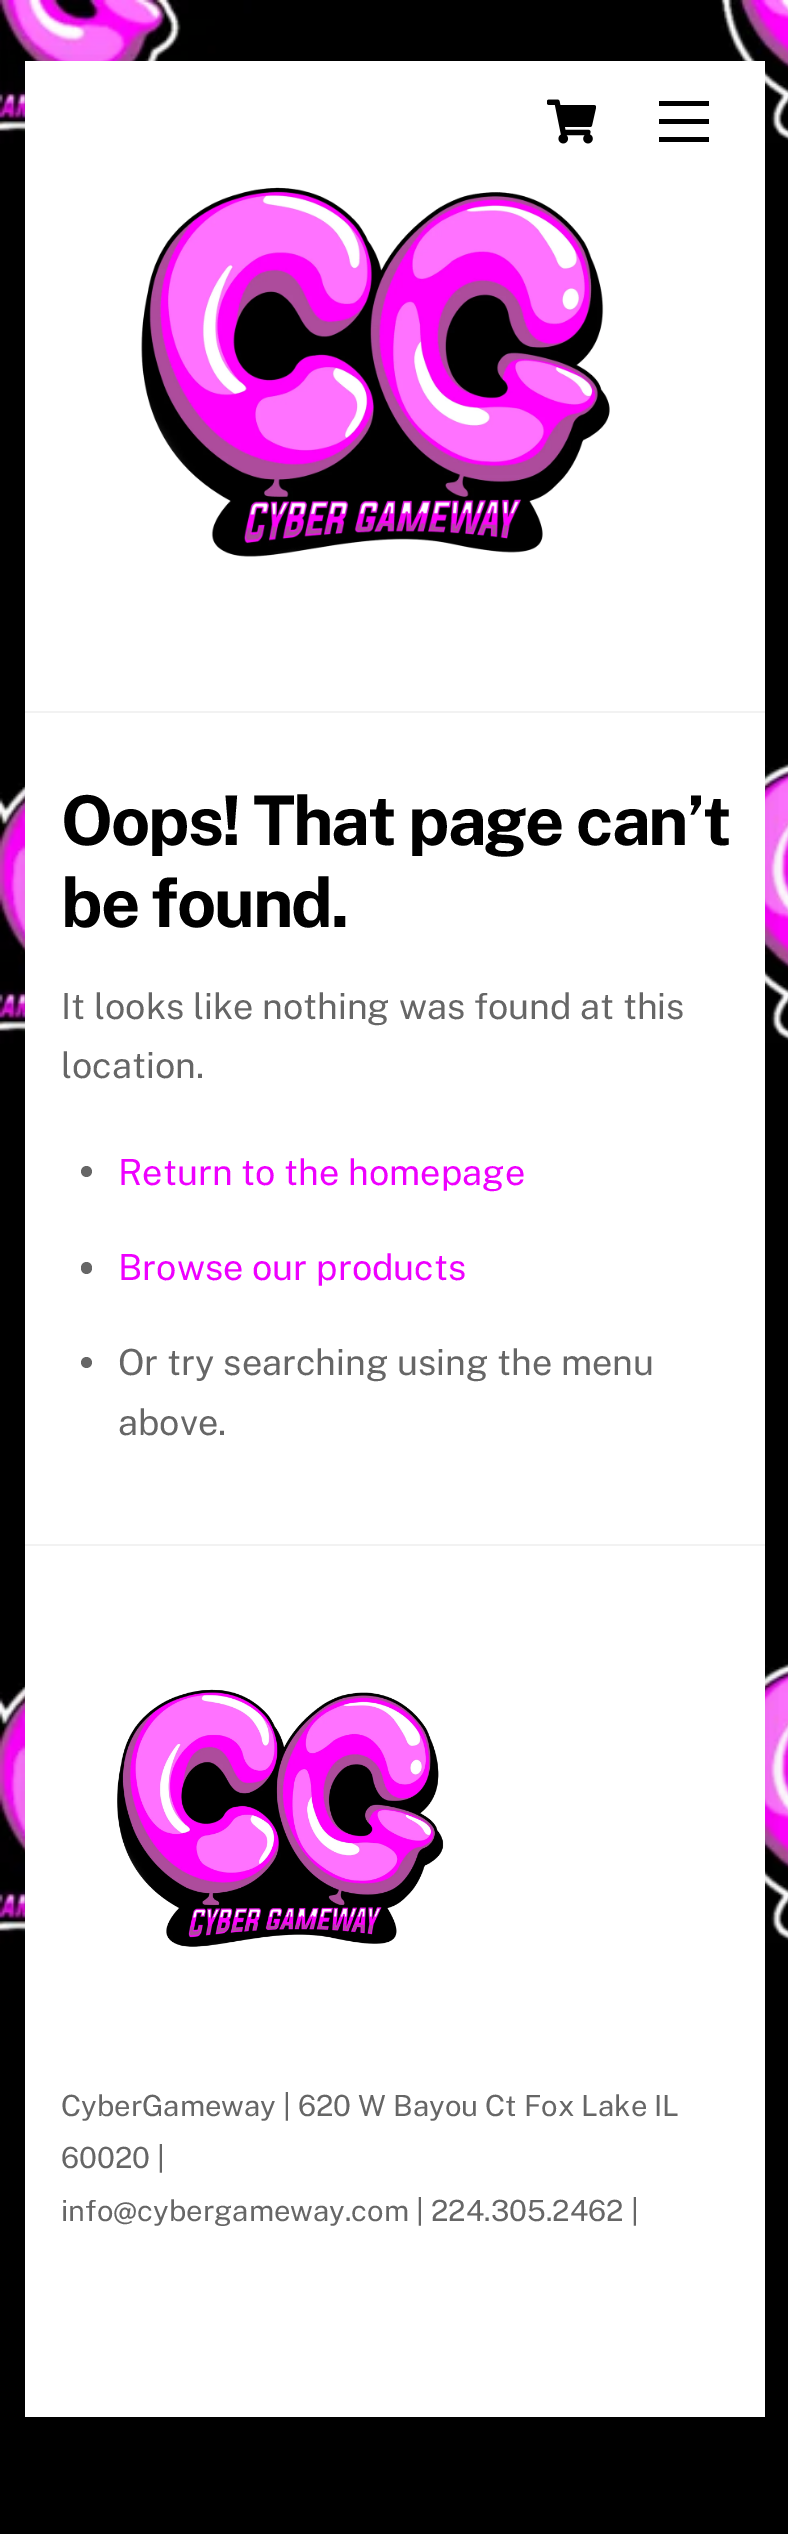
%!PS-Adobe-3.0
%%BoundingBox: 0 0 788 2534
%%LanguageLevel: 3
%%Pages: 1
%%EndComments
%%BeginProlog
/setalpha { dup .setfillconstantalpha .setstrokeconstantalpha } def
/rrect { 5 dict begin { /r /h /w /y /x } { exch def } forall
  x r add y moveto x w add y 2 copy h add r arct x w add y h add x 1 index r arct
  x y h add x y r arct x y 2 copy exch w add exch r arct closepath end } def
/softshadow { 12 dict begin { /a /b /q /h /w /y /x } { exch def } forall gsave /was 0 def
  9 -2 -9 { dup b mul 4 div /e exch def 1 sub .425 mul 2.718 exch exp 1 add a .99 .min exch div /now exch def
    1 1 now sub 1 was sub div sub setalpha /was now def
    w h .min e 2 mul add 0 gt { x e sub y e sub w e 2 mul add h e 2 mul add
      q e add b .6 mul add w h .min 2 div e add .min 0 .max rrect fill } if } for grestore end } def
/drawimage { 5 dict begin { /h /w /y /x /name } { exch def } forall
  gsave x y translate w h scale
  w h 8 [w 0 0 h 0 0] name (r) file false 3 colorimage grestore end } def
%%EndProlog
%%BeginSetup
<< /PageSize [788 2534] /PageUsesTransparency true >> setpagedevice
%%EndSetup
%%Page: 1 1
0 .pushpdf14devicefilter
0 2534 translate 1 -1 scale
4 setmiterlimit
1 setgray
0 0 788 2534 rectfill
(images/1.raw) 0 0 788 2534 drawimage
0 setgray
25 68 740 2355 0 18 0.1 softshadow
1 setgray
25 61 740 2356 rectfill
0.949 setgray
25 711 740 2 rectfill
(images/2.raw) 547 99 49 45 drawimage
0 setgray
659 137 50 5 rectfill
659 101 50 5 rectfill
659 119 50 5 rectfill
(images/3.raw) 141 187 469 370 drawimage
0.4 setgray
newpath 86.5 1171.5 5.5 0 360 arc closepath fill
81 1262 11 12 5.5 rrect fill
newpath 86.5 1362.5 5.5 0 360 arc closepath fill
0.949 setgray
25 1544 740 2 rectfill
(images/4.raw) 117 1689 327 258 drawimage
/PublicSans-Bold [68.5 0 0 -68.5 0 0] selectfont
0 setgray
61 845 moveto -2.05 0 (Oops! That page can’t) ashow
61 927 moveto -2.05 0 (be found.) ashow
/PublicSans-Regular [36 0 0 -36 0 0] selectfont
0.4 setgray
61 1019 moveto (It looks like nothing was found at this) show
61 1078 moveto (location.) show
0.933 0 1 setrgbcolor
118 1185 moveto (Return to the homepage) show
118 1280 moveto (Browse our products) show
0.4 setgray
118 1375 moveto (Or try searching using the menu) show
118 1435 moveto (above.) show
/PublicSans-Regular [29.2 0 0 -29.2 0 0] selectfont
61 2116 moveto (CyberGameway | 620 W Bayou Ct Fox Lake IL) show
61 2168 moveto (60020 |) show
61 2221 moveto (info@cybergameway.com | 224.305.2462 |) show
.poppdf14devicefilter showpage
%%EOF
